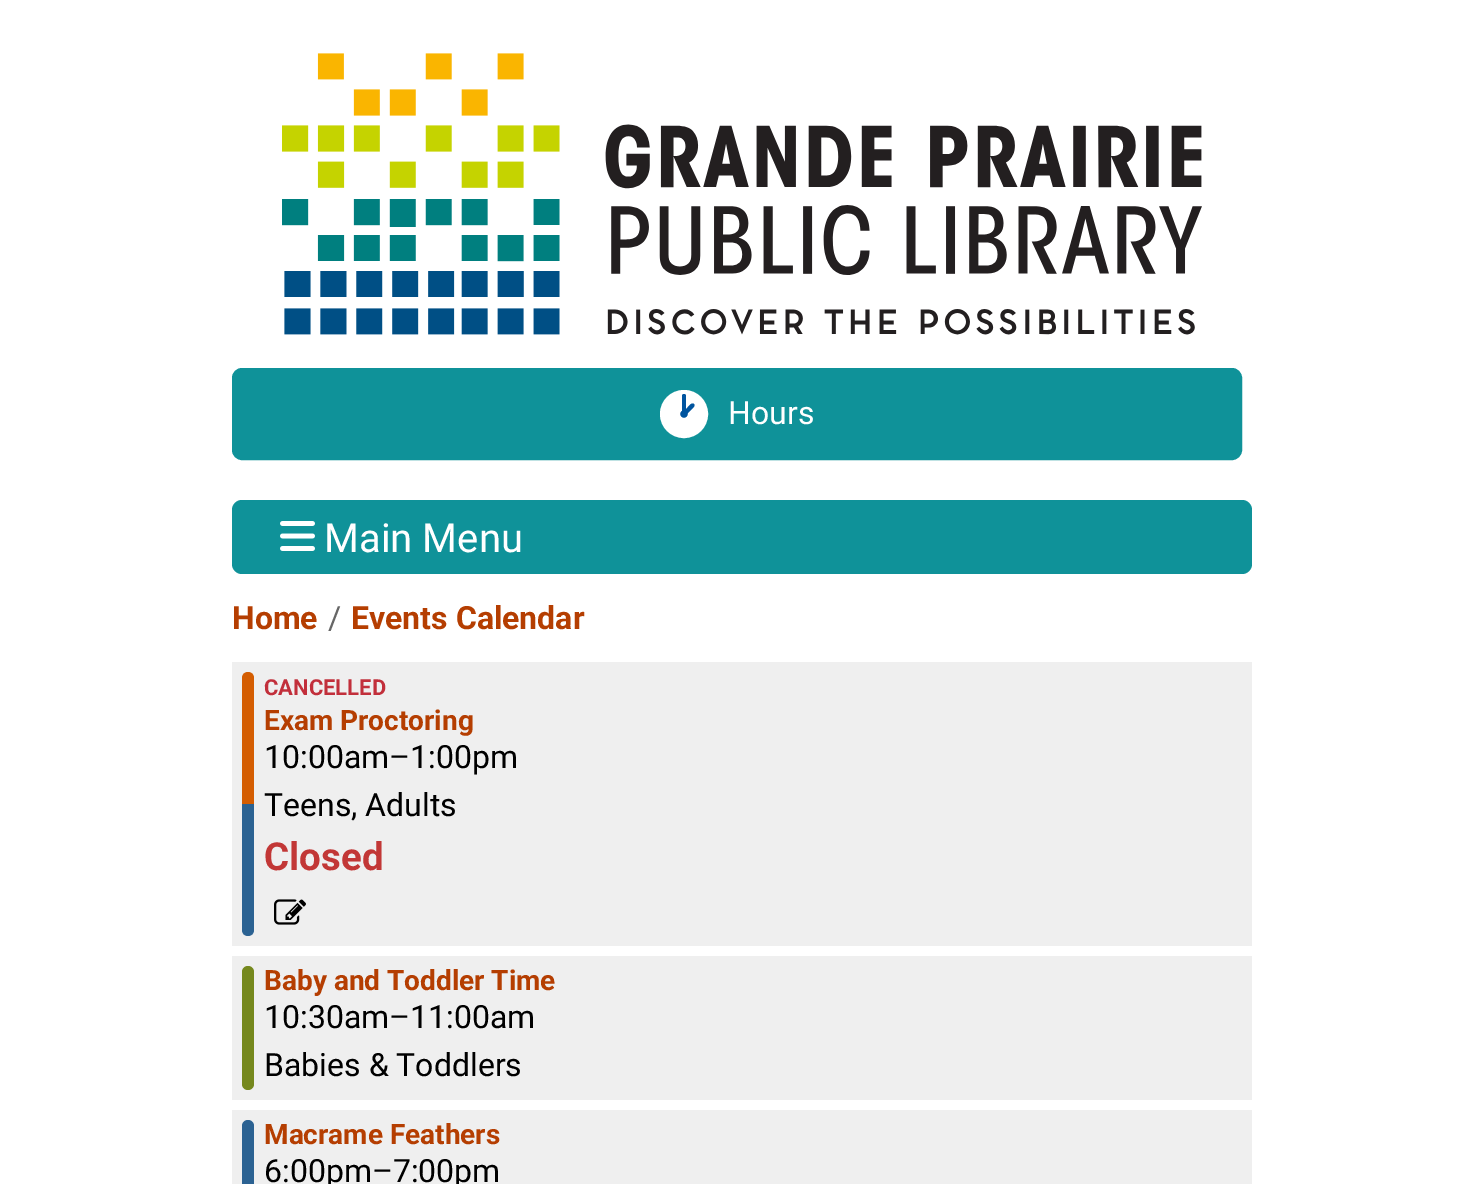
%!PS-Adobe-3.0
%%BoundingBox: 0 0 1484 1184
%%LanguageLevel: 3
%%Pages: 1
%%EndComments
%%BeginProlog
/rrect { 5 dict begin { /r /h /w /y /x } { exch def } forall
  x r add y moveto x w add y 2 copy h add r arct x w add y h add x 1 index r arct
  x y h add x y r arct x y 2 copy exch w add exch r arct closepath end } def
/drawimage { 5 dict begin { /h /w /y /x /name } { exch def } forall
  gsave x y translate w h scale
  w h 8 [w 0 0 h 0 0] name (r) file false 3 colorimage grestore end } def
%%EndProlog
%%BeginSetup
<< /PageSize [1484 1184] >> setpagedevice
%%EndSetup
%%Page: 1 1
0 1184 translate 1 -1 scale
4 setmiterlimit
1 setgray
0 0 1484 1184 rectfill
(images/1.raw) 282 53 920 282 drawimage
0.059 0.573 0.6 setrgbcolor
233 369 1008 90 9 rrect gsave fill grestore
2 setlinewidth
stroke
0 0.329 0.624 setrgbcolor
newpath 684 414 14 0 360 arc closepath gsave fill grestore
1 setgray
20 setlinewidth
stroke
0 0.329 0.624 setrgbcolor
682 394 4 20 2 rrect fill
newpath 694 404 moveto 696 406 691.5 409 690.5 410.5 curveto 689 411.5 686 416 684 414 curveto 682 412 686.5 409 687.5 407.5 curveto 688.5 406.5 691.5 402 694 404 curveto closepath fill
0.059 0.573 0.6 setrgbcolor
232 500 1020 74 10 rrect fill
(images/2.raw) 280 521 35 30 drawimage
0.937 setgray
232 662 1020 284 rectfill
0.831 0.365 0.004 setrgbcolor
newpath 248 672 moveto 251.5 672 254 674.5 254 678 curveto 254 804 lineto 242 804 lineto 242 678 lineto 242 674.5 244.5 672 248 672 curveto closepath fill
0.169 0.384 0.573 setrgbcolor
newpath 242 804 moveto 254 804 lineto 254 930 lineto 254 933.5 251.5 936 248 936 curveto 244.5 936 242 933.5 242 930 curveto closepath fill
(images/3.raw) 274 899 32 26 drawimage
0.937 setgray
232 956 1020 144 rectfill
0.459 0.533 0.114 setrgbcolor
242 966 12 124 6 rrect fill
0.937 setgray
232 1110 1020 74 rectfill
0.169 0.384 0.573 setrgbcolor
242 1120 12 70 6 rrect fill
/Roboto-Regular [32 0 0 -32 0 0] selectfont
1 setgray
728 424 moveto (Hours) show
/Roboto-Regular [40 0 0 -40 0 0] selectfont
324 552 moveto (Main Menu) show
/Roboto-Bold [32 0 0 -32 0 0] selectfont
0.71 0.243 0.004 setrgbcolor
232 629 moveto (Home) show
/Roboto-Regular [32 0 0 -32 0 0] selectfont
0.4 setgray
328 629 moveto (/) show
/Roboto-Bold [32 0 0 -32 0 0] selectfont
0.71 0.243 0.004 setrgbcolor
351 629 moveto (Events Calendar) show
/Roboto-Bold [22 0 0 -22 0 0] selectfont
0.761 0.184 0.231 setrgbcolor
264 695 moveto (CANCELLED) show
/Roboto-Bold [28 0 0 -28 0 0] selectfont
0.71 0.243 0.004 setrgbcolor
264 730 moveto (Exam Proctoring) show
/Roboto-Regular [32 0 0 -32 0 0] selectfont
0 setgray
264 768 moveto (10:00am–1:00pm) show
264 816 moveto (Teens, Adults) show
/Roboto-Bold [38.5 0 0 -38.5 0 0] selectfont
0.761 0.216 0.212 setrgbcolor
264 870 moveto (Closed) show
/Roboto-Bold [28 0 0 -28 0 0] selectfont
0.71 0.243 0.004 setrgbcolor
264 990 moveto (Baby and Toddler Time) show
/Roboto-Regular [32 0 0 -32 0 0] selectfont
0 setgray
264 1028 moveto (10:30am–11:00am) show
264 1076 moveto (Babies & Toddlers) show
/Roboto-Bold [28 0 0 -28 0 0] selectfont
0.71 0.243 0.004 setrgbcolor
264 1144 moveto (Macrame Feathers) show
/Roboto-Regular [32 0 0 -32 0 0] selectfont
0 setgray
264 1182 moveto (6:00pm–7:00pm) show
showpage
%%EOF
